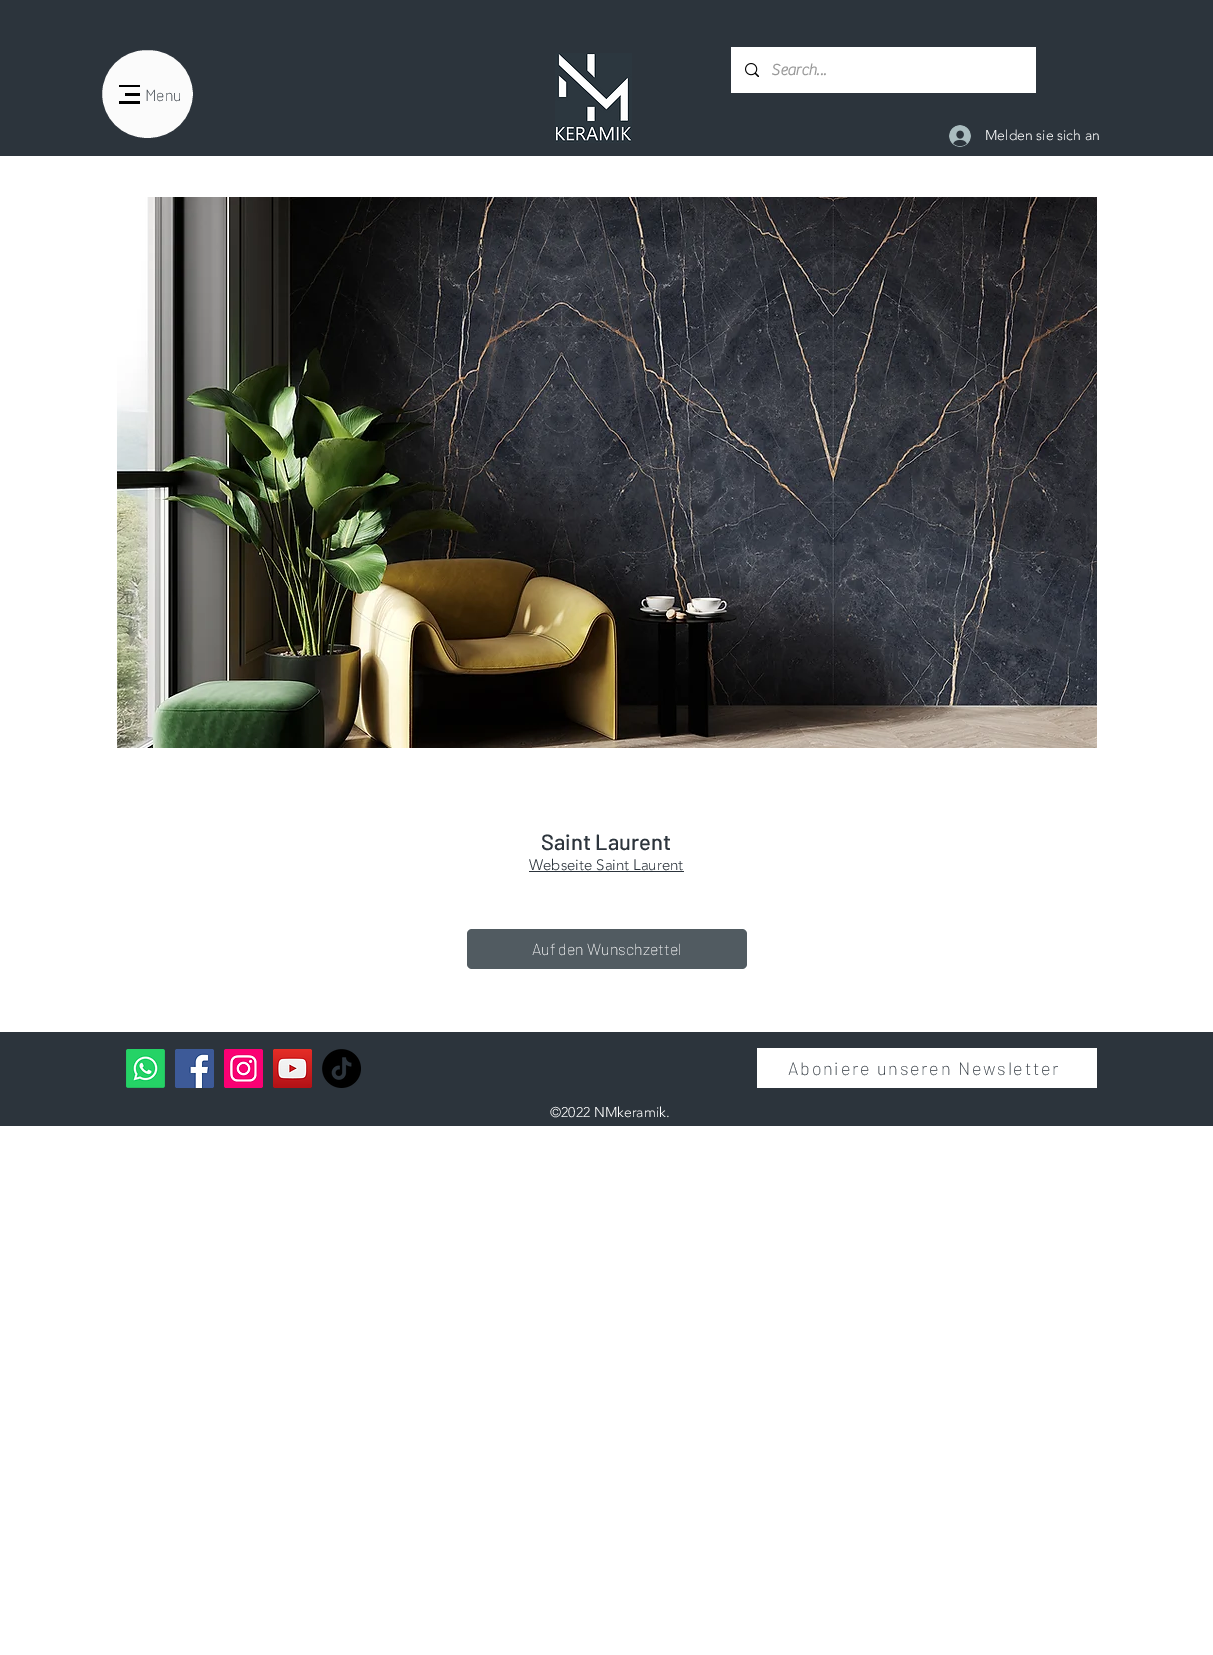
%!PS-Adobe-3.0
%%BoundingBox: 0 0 1213 1655
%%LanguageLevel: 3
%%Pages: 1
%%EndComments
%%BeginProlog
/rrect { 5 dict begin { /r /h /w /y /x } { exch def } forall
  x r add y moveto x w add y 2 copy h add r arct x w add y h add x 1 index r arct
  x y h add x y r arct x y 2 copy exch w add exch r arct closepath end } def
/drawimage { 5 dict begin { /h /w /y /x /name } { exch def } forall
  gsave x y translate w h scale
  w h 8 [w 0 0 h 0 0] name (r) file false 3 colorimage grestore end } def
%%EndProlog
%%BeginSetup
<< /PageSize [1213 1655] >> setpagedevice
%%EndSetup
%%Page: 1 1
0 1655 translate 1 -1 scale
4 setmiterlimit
1 setgray
0 0 1213 1655 rectfill
0.173 0.204 0.235 setrgbcolor
0 0 1213 156 rectfill
1 setgray
731 47 305 46 rectfill
(images/1.raw) 745 63 14 14 drawimage
0.984 setgray
101 49 93 90 45 rrect gsave fill grestore
0.173 0.204 0.235 setrgbcolor
2 setlinewidth
stroke
0 setgray
119 85 21 2 rectfill
125 93 15 3 rectfill
119 101 21 3 rectfill
(images/2.raw) 555 53 77 90 drawimage
(images/3.raw) 949 125 22 22 drawimage
(images/4.raw) 117 197 980 551 drawimage
0.173 0.204 0.235 setrgbcolor
529 871 155 1 rectfill
0.318 0.357 0.38 setrgbcolor
467 929 280 40 5 rrect fill
0.173 0.204 0.235 setrgbcolor
0 1032 1213 94 rectfill
(images/5.raw) 126 1049 39 39 drawimage
(images/6.raw) 175 1049 39 39 drawimage
(images/7.raw) 224 1049 39 39 drawimage
(images/8.raw) 273 1049 39 39 drawimage
(images/9.raw) 322 1049 39 39 drawimage
1 setgray
757 1048 340 40 rectfill
/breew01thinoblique-Bold [16 0 0 -16 0 0] selectfont
0.6 setgray
771 75 moveto (Search...) show
/Barlow-ExtraLight [16 0 0 -16 0 0] selectfont
0.173 0.204 0.235 setrgbcolor
145 101 moveto (Menu) show
/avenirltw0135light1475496-Light [14 0 0 -14 0 0] selectfont
1 setgray
985 140 moveto (Melden sie sich an) show
/Barlow-Medium [22 0 0 -22 0 0] selectfont
0.173 0.204 0.235 setrgbcolor
541 850 moveto (Saint Laurent) show
/avenirltw0135light1475496-Light [15 0 0 -15 0 0] selectfont
529 870 moveto (Webseite Saint Laurent) show
/Barlow-ExtraLight [16 0 0 -16 0 0] selectfont
1 setgray
532 955 moveto (Auf den Wunschzettel) show
/Barlow-ExtraLight [18 0 0 -18 0 0] selectfont
0.173 0.204 0.235 setrgbcolor
788 1075 moveto 1.8 0 (Aboniere unseren Newsletter) ashow
/avenirltw0135light1475496-Light [14 0 0 -14 0 0] selectfont
1 setgray
550 1117 moveto (©2022 NMkeramik.) show
showpage
%%EOF
